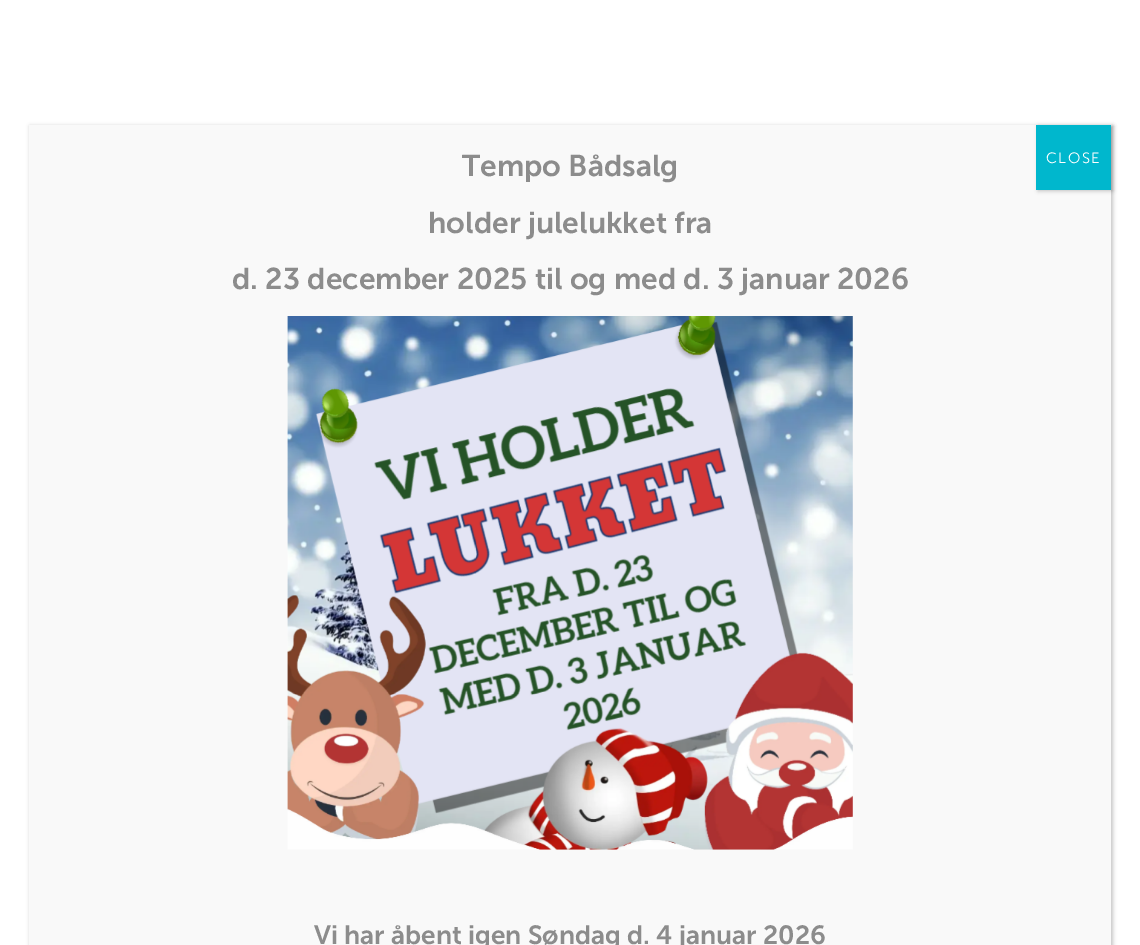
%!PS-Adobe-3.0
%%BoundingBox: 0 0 1140 945
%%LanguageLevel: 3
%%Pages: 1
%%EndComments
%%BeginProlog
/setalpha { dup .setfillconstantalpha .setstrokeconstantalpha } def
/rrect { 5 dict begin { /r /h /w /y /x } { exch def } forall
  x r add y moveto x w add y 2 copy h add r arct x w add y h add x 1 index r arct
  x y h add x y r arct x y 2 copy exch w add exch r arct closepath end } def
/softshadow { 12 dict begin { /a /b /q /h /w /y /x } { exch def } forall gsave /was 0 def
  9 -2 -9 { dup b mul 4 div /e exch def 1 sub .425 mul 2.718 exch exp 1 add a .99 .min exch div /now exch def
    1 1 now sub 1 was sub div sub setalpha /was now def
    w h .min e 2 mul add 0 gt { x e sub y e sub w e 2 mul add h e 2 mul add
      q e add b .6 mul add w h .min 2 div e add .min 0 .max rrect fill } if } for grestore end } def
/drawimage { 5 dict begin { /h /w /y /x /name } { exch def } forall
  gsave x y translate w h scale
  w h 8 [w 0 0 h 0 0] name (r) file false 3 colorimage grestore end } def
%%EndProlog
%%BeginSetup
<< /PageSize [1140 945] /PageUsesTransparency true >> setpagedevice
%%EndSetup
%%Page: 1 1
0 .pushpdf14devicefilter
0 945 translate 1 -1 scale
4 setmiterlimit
1 setgray
0 0 1140 945 rectfill
0.008 setgray
30 126 1083 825 0 2 0.23 softshadow
0.976 setgray
29 125 1082 820 rectfill
(images/1.raw) 287 316 566 534 drawimage
0.008 setgray
1038 126 75 65 0 2 0.23 softshadow
0 0.718 0.804 setrgbcolor
1036 125 75 65 rectfill
/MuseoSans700-SemiBold [30 0 0 -30 0 0] selectfont
0.549 setgray
462 176 moveto (Tempo Bådsalg) show
428 233 moveto (holder julelukket fra) show
232 289 moveto (d. 23 december 2025 til og med d. 3 januar 2026) show
/MuseoSans700-SemiBold [26.25 0 0 -26.25 0 0] selectfont
314 944 moveto (Vi har åbent igen Søndag d. 4 januar 2026) show
/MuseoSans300-Light [15 0 0 -15 0 0] selectfont
1 setgray
1046 163 moveto 1.5 0 (CLOSE) ashow
.poppdf14devicefilter showpage
%%EOF
